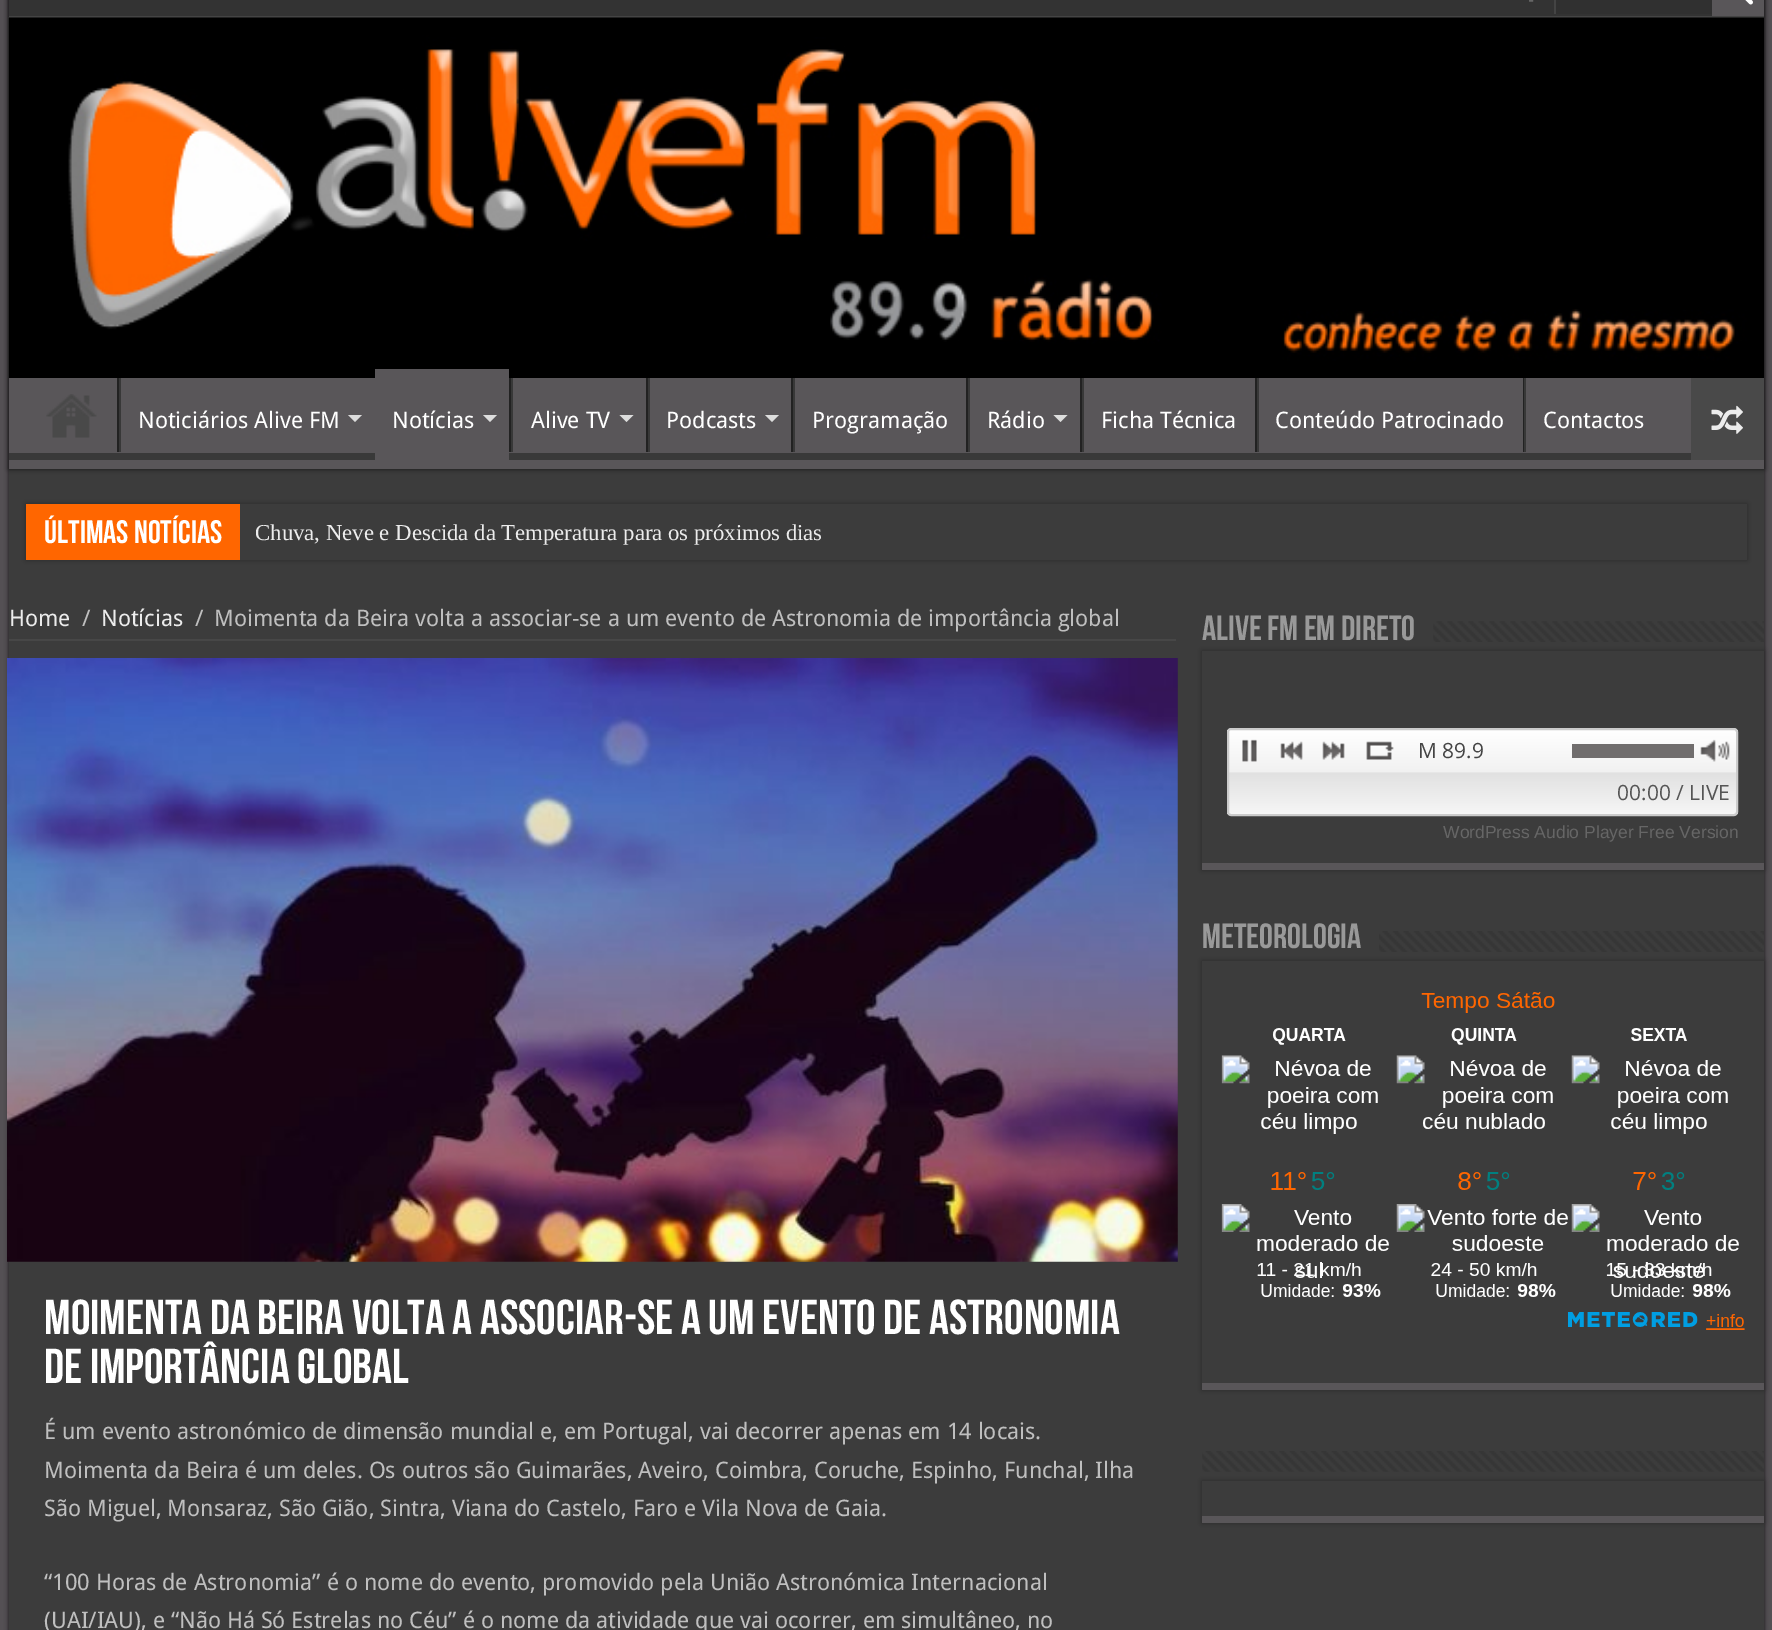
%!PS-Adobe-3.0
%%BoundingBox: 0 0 1772 1630
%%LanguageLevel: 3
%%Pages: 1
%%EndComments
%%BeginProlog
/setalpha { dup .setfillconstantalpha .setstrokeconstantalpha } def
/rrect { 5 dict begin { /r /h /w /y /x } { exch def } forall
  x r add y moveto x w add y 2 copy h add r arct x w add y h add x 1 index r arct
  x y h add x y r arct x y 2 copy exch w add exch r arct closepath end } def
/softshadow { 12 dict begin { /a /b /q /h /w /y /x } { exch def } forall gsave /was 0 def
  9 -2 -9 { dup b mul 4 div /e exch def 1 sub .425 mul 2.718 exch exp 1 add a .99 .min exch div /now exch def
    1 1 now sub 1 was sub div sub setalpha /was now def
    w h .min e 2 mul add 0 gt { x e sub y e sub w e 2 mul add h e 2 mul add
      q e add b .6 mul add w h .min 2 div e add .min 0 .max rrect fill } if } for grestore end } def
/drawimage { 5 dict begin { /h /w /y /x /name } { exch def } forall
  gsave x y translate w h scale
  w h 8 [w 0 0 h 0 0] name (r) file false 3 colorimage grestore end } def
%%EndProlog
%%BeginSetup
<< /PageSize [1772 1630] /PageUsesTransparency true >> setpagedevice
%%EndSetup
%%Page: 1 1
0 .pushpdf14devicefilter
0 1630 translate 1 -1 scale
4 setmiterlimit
0.329 0.314 0.329 setrgbcolor
0 0 1772 1630 rectfill
0.078 setgray
9 -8 1755 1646 0 2.5 1 softshadow
0.235 setgray
9 469 1755 1161 rectfill
0.078 setgray
9 -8 1755 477 0 2.5 1 softshadow
0.2 setgray
9 0 1703 16 rectfill
0.267 setgray
9 16 1755 2 rectfill
(images/1.raw) 1529 0 5 2 drawimage
0.188 setgray
1556 0 156 14 rectfill
0.267 setgray
1554 0 2 14 rectfill
0.349 0.337 0.349 setrgbcolor
1712 0 52 16 rectfill
(images/2.raw) 1745 0 8 5 drawimage
(images/3.raw) 8 17 1756 361 drawimage
9 378 1755 91 rectfill
gsave
9 378 1755 82 rectclip
0.224 setgray
newpath -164 205 moveto 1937 205 lineto 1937 634 lineto -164 634 lineto closepath 7 368 moveto 1762 368 lineto 1763 368 1764 368 1764 369 curveto 1764 452 lineto 1764 452 1763 453 1762 453 curveto 7 453 lineto 6 453 5 452 5 452 curveto 5 369 lineto 5 368 6 368 7 368 curveto closepath eofill
grestore
(images/4.raw) 46 394 51 44 drawimage
0.133 setgray
117 378 2 74 rectfill
0.22 setgray
119 378 2 74 rectfill
0.867 setgray
newpath 348 415 moveto 362 415 lineto 355 422 lineto closepath fill
0.349 0.337 0.349 setrgbcolor
375 369 134 91 rectfill
0.867 setgray
newpath 483 415 moveto 497 415 lineto 490 422 lineto closepath fill
0.133 setgray
509 378 2 74 rectfill
0.22 setgray
511 378 2 74 rectfill
0.867 setgray
newpath 619.5 415 moveto 633.5 415 lineto 626.5 422 lineto closepath fill
0.133 setgray
646 378 2 74 rectfill
0.22 setgray
648 378 2 74 rectfill
0.867 setgray
newpath 765 415 moveto 779 415 lineto 772 422 lineto closepath fill
0.133 setgray
791 378 2 74 rectfill
0.22 setgray
793 378 2 74 rectfill
0.133 setgray
966 378 2 74 rectfill
0.22 setgray
968 378 2 74 rectfill
0.867 setgray
newpath 1053.5 415 moveto 1067.5 415 lineto 1060.5 422 lineto closepath fill
0.133 setgray
1080 378 2 74 rectfill
0.22 setgray
1082 378 2 74 rectfill
0.133 setgray
1255 378 2 74 rectfill
0.22 setgray
1257 378 2 74 rectfill
0.133 setgray
1523 378 1 74 rectfill
0.22 setgray
1524 378 2 74 rectfill
0.286 setgray
1691 378 73 82 rectfill
(images/5.raw) 1711 405 32 29 drawimage
0.165 setgray
26 504 1721 56 0 2.5 1 softshadow
0.235 setgray
240 504 1507 56 rectfill
1 0.4 0 setrgbcolor
26 504 214 56 rectfill
0.278 setgray
9 639 1167 2 rectfill
(images/6.raw) 7 658 1171 604 drawimage
(images/7.raw) 1433 621 331 21 drawimage
0.165 setgray
1202 651 562 219 0 2.5 1 softshadow
0.235 setgray
1202 651 562 212 rectfill
0.349 0.337 0.349 setrgbcolor
1202 863 562 7 rectfill
gsave
1227 728 511 88 4 rrect clip newpath
gsave newpath 1227 730 moveto 1738 730 lineto 1738 814 lineto 1227 814 lineto closepath clip newpath
<< /ShadingType 2 /ColorSpace /DeviceRGB /Coords [1482 730 1482 814] /Extend [true true] /Function << /FunctionType 3 /Domain [0 1] /Functions [<< /FunctionType 2 /Domain [0 1] /C0 [1 1 1] /C1 [0.945 0.945 0.945] /N 1 >> << /FunctionType 2 /Domain [0 1] /C0 [0.945 0.945 0.945] /C1 [0.882 0.882 0.882] /N 1 >> << /FunctionType 2 /Domain [0 1] /C0 [0.882 0.882 0.882] /C1 [0.965 0.965 0.965] /N 1 >>] /Bounds [0.5 0.51] /Encode [0 1 0 1 0 1] >> >> shfill grestore
grestore
0.796 setgray
2 setlinewidth
1228 729 509 86 3 rrect stroke
(images/8.raw) 1242 739 15 23 drawimage
(images/9.raw) 1280 741 23 19 drawimage
(images/10.raw) 1322 741 23 19 drawimage
(images/11.raw) 1366 741 28 19 drawimage
0.439 0.427 0.427 setrgbcolor
1572 744 122 14 rectfill
(images/12.raw) 1700 739 30 23 drawimage
(images/13.raw) 1379 931 385 21 drawimage
0.165 setgray
1202 961 562 429 0 2.5 1 softshadow
0.235 setgray
1202 961 562 422 rectfill
0.349 0.337 0.349 setrgbcolor
1202 1383 562 7 rectfill
(images/14.raw) 1221 992 524 338 drawimage
(images/15.raw) 1202 1451 562 21 drawimage
0.165 setgray
1202 1481 562 42 0 2.5 1 softshadow
0.235 setgray
1202 1481 562 35 rectfill
0.349 0.337 0.349 setrgbcolor
1202 1516 562 7 rectfill
/DroidSans-Regular [22.75 0 0 -22.75 0 0] selectfont
1 setgray
138 428 moveto (Noticiários Alive FM) show
392 428 moveto (Notícias) show
531 428 moveto (Alive TV) show
666 428 moveto (Podcasts) show
812 428 moveto (Programação) show
987 428 moveto (Rádio) show
1101 428 moveto (Ficha Técnica) show
1275 428 moveto (Conteúdo Patrocinado) show
1543 428 moveto (Contactos) show
/BebasNeue-Bold [32.5 0 0 -32.5 0 0] selectfont
44 543 moveto (últimas Notícias) show
/LiberationSerif-Regular [22.75 0 0 -22.75 0 0] selectfont
0.925 setgray
255 540 moveto (Chuva, Neve e Descida da Temperatura para os próximos dias) show
/DroidSans-Regular [22.75 0 0 -22.75 0 0] selectfont
9 626 moveto (Home) show
0.749 setgray
82 626 moveto (/) show
0.925 setgray
101 626 moveto (Notícias) show
0.749 setgray
195 626 moveto (/) show
214 626 moveto (Moimenta da Beira volta a associar-se a um evento de Astronomia de importância global) show
/BebasNeue-Bold [49 0 0 -49 0 0] selectfont
1 setgray
44 1334 moveto (Moimenta da Beira volta a associar-se a um evento de Astronomia) show
44 1383 moveto (de importância global) show
/DroidSans-Regular [22.75 0 0 -22.75 0 0] selectfont
0.749 setgray
44 1439 moveto (É um evento astronómico de dimensão mundial e, em Portugal, vai decorrer apenas em 14 locais.) show
44 1478 moveto (Moimenta da Beira é um deles. Os outros são Guimarães, Aveiro, Coimbra, Coruche, Espinho, Funchal, Ilha) show
44 1516 moveto (São Miguel, Monsaraz, São Gião, Sintra, Viana do Castelo, Faro e Vila Nova de Gaia.) show
44 1590 moveto (“100 Horas de Astronomia” é o nome do evento, promovido pela União Astronómica Internacional) show
44 1628 moveto (\(UAI/IAU\), e “Não Há Só Estrelas no Céu” é o nome da atividade que vai ocorrer, em simultâneo, no) show
/BebasNeue-Bold [35 0 0 -35 0 0] selectfont
0.6 setgray
1202 640 moveto (Alive FM em Direto) show
/OpenSans-Regular [21 0 0 -21 0 0] selectfont
0.267 setgray
1418 758 moveto (M 89.9) show
0.333 setgray
1617 800 moveto (00:00 / LIVE) show
/LiberationSans-Regular [17.5 0 0 -17.5 0 0] selectfont
0.4 setgray
1443 838 moveto (WordPress Audio Player Free Version) show
/BebasNeue-Bold [35 0 0 -35 0 0] selectfont
0.6 setgray
1202 948 moveto (Meteorologia) show
.poppdf14devicefilter showpage
%%EOF
